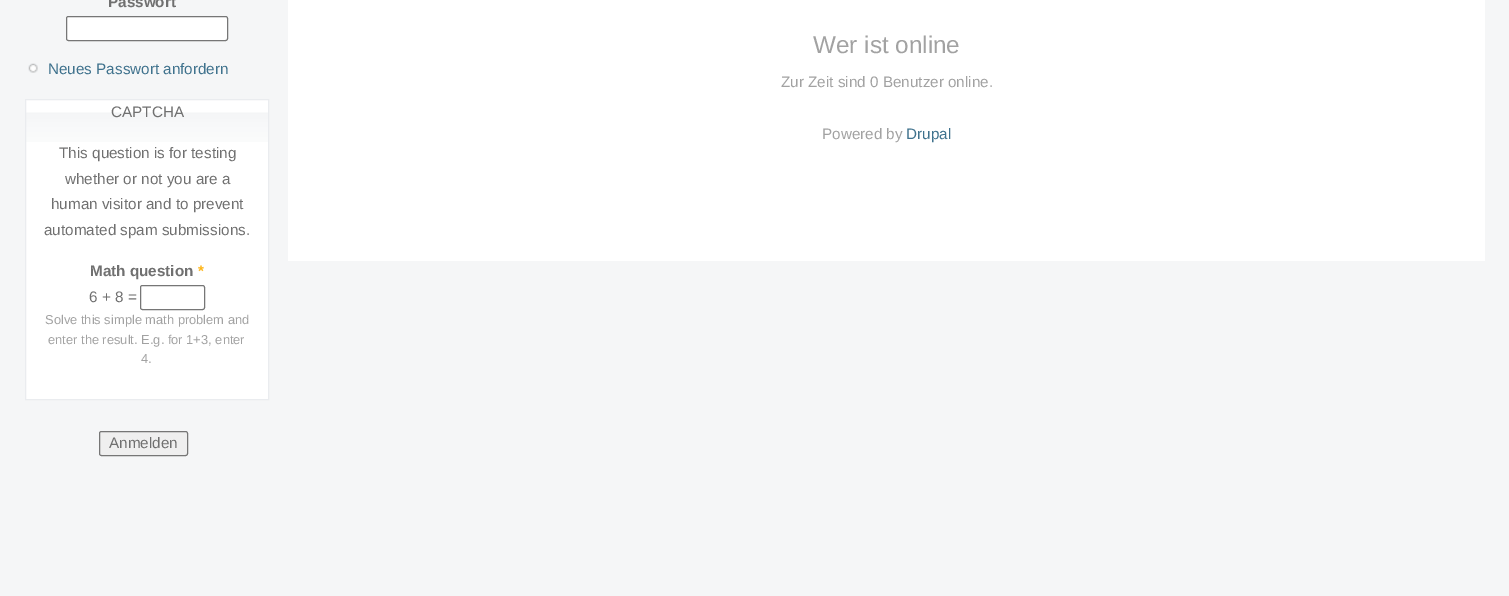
%!PS-Adobe-3.0
%%BoundingBox: 0 0 1509 596
%%LanguageLevel: 3
%%Pages: 1
%%EndComments
%%BeginProlog
/rrect { 5 dict begin { /r /h /w /y /x } { exch def } forall
  x r add y moveto x w add y 2 copy h add r arct x w add y h add x 1 index r arct
  x y h add x y r arct x y 2 copy exch w add exch r arct closepath end } def
/drawimage { 5 dict begin { /h /w /y /x /name } { exch def } forall
  gsave x y translate w h scale
  w h 8 [w 0 0 h 0 0] name (r) file false 3 colorimage grestore end } def
%%EndProlog
%%BeginSetup
<< /PageSize [1509 596] >> setpagedevice
%%EndSetup
%%Page: 1 1
0 596 translate 1 -1 scale
4 setmiterlimit
0.961 0.965 0.969 setrgbcolor
0 0 1509 596 rectfill
1 setgray
66.5 16.5 161 24 2 rrect gsave fill grestore
0.463 setgray
stroke
(images/1.raw) 28 63 10 10 drawimage
1 setgray
26 100 242 299 rectfill
(images/2.raw) 26 112 242 30 drawimage
0.918 0.925 0.937 setrgbcolor
25.5 99.5 243 300 rectstroke
0.463 setgray
140.5 285.5 64 24 2 rrect stroke
0.937 setgray
99.5 431.5 88 24 2 rrect gsave fill grestore
0.463 setgray
stroke
1 setgray
288 0 1197 261 rectfill
/LiberationSans-Bold [15.25 0 0 -15.25 0 0] selectfont
0.439 setgray
108 7 moveto (Passwort) show
/LiberationSans-Regular [15.25 0 0 -15.25 0 0] selectfont
0.247 0.447 0.553 setrgbcolor
48 74 moveto (Neues Passwort anfordern) show
0.439 setgray
111 117 moveto (CAPTCHA) show
59 158 moveto (This question is for testing) show
65 184 moveto (whether or not you are a) show
51 209 moveto (human visitor and to prevent) show
44 235 moveto (automated spam submissions.) show
/LiberationSans-Bold [15.25 0 0 -15.25 0 0] selectfont
90 276 moveto (Math question) show
0.996 0.71 0.09 setrgbcolor
198 276 moveto (*) show
/LiberationSans-Regular [15.25 0 0 -15.25 0 0] selectfont
0.439 setgray
89 302 moveto (6 + 8 =) show
/LiberationSans-Regular [12.9 0 0 -12.9 0 0] selectfont
0.635 setgray
45 324 moveto (Solve this simple math problem and) show
48 344 moveto (enter the result. E.g. for 1+3, enter) show
141 363 moveto (4.) show
/LiberationSans-Regular [15.25 0 0 -15.25 0 0] selectfont
0.439 setgray
109 448 moveto (Anmelden) show
/LiberationSans-Regular [24.25 0 0 -24.25 0 0] selectfont
0.635 setgray
813 53 moveto (Wer ist online) show
/LiberationSans-Regular [15.25 0 0 -15.25 0 0] selectfont
781 87 moveto (Zur Zeit sind 0 Benutzer online.) show
822 139 moveto (Powered by) show
0.247 0.447 0.553 setrgbcolor
906 139 moveto (Drupal) show
showpage
%%EOF
